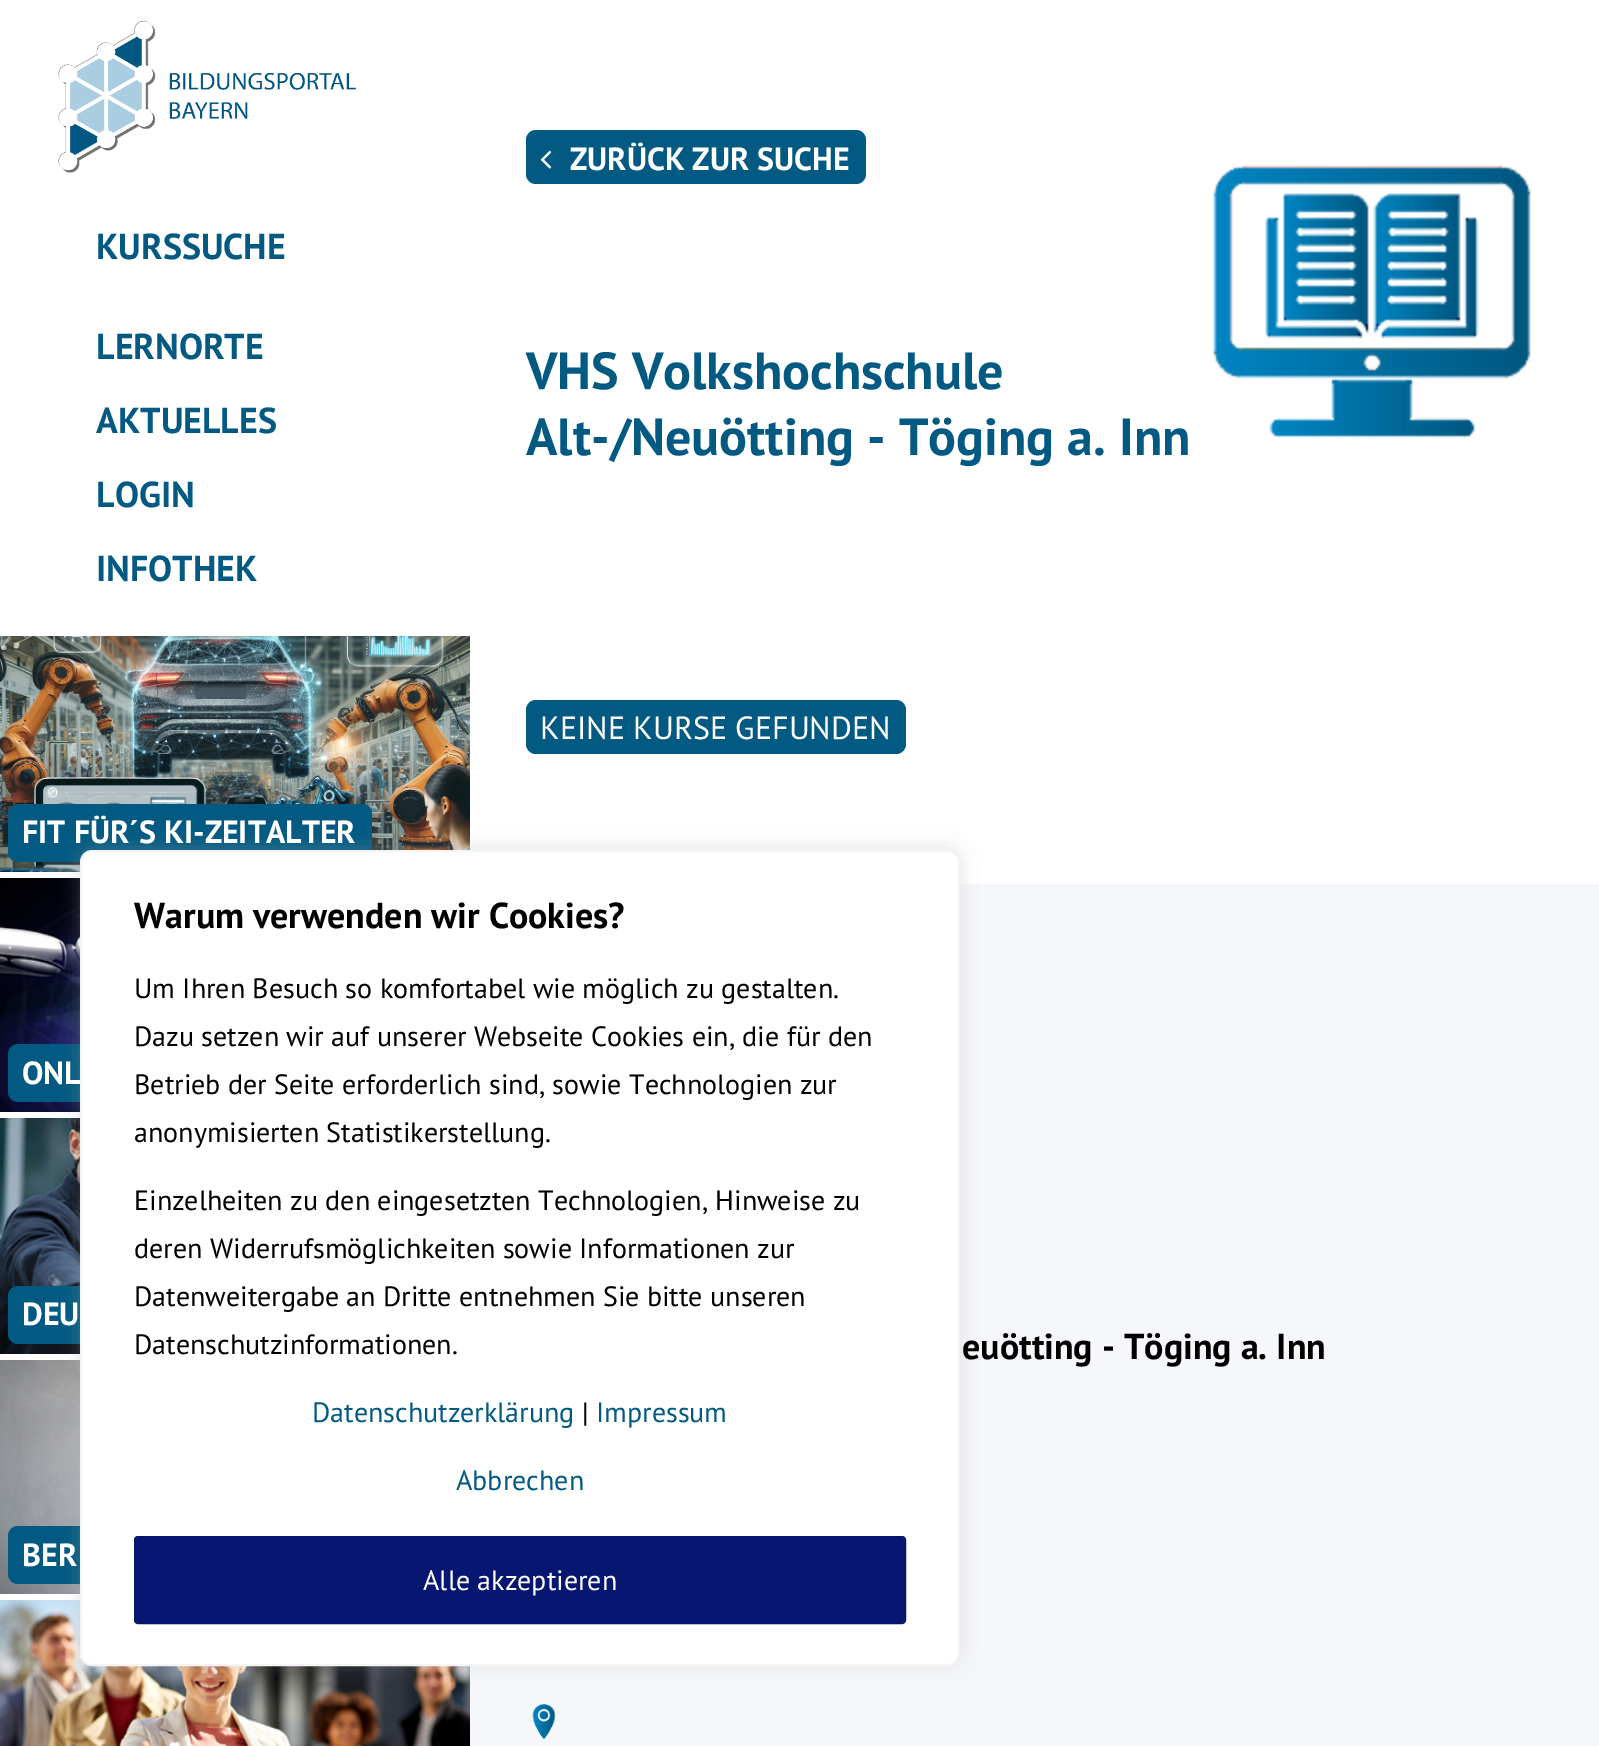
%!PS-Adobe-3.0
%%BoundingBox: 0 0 1599 1746
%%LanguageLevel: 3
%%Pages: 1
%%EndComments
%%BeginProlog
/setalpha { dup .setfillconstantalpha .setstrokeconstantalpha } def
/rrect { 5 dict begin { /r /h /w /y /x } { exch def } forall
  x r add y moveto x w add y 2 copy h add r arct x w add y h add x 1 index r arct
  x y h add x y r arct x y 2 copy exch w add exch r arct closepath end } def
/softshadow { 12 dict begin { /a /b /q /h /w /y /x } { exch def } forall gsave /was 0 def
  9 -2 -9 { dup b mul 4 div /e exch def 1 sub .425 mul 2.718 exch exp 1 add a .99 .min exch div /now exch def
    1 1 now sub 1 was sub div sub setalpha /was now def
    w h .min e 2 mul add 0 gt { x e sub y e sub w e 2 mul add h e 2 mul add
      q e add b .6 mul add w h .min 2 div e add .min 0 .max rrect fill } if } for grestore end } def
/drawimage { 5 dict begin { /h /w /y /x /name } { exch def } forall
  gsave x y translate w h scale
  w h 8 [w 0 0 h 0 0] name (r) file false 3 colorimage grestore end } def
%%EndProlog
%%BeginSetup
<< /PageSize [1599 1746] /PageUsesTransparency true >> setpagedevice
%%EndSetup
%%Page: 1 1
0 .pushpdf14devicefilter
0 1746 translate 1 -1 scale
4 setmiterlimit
1 setgray
0 0 1599 1746 rectfill
(images/1.raw) 58 20 298 153 drawimage
(images/2.raw) 0 636 470 236 drawimage
0.008 0.349 0.51 setrgbcolor
8 804 364 58 10 rrect fill
(images/3.raw) 0 878 80 234 drawimage
8 1044 370 58 10 rrect fill
(images/4.raw) 0 1118 80 236 drawimage
8 1286 280 58 10 rrect fill
(images/5.raw) 0 1360 80 234 drawimage
8 1526 454 58 10 rrect fill
(images/6.raw) 0 1600 470 146 drawimage
526 130 340 54 10 rrect fill
(images/7.raw) 540 150 12 19 drawimage
(images/8.raw) 1213 165 318 274 drawimage
526 700 380 54 10 rrect fill
0.965 0.969 0.98 setrgbcolor
470 884 1129 862 rectfill
(images/9.raw) 532 1704 24 36 drawimage
0.675 0.671 0.671 setrgbcolor
80 848 880 816 12 10 0.3 softshadow
1 setgray
81 851 878 814 11 rrect gsave fill grestore
0.957 setgray
2 setlinewidth
stroke
0.024 0.086 0.443 setrgbcolor
136 1538 768 84 2 rrect gsave fill grestore
4 setlinewidth
stroke
/PTSans-Bold [36 0 0 -36 0 0] selectfont
0.008 0.349 0.51 setrgbcolor
96 259 moveto (KURSSUCHE) show
96 359 moveto (LERNORTE) show
96 433 moveto (AKTUELLES) show
96 507 moveto (LOGIN) show
96 581 moveto (INFOTHEK) show
/PTSans-Bold [32 0 0 -32 0 0] selectfont
1 setgray
22 843 moveto (FIT FÜR´S KI-ZEITALTER) show
22 1084 moveto (ONL) show
22 1325 moveto (DEU) show
22 1566 moveto (BER) show
570 170 moveto (ZURÜCK ZUR SUCHE) show
/PTSans-Bold [52 0 0 -52 0 0] selectfont
0.008 0.349 0.51 setrgbcolor
526 389 moveto (VHS Volkshochschule) show
526 455 moveto (Alt-/Neuötting - Töging a. Inn) show
/PTSans-Regular [32 0 0 -32 0 0] selectfont
1 setgray
540 739 moveto (KEINE KURSE GEFUNDEN) show
/PTSans-Bold [36 0 0 -36 0 0] selectfont
0 setgray
962 1359 moveto (euötting - Töging a. Inn) show
134 928 moveto (Warum verwenden wir Cookies?) show
/PTSans-Regular [28 0 0 -28 0 0] selectfont
134 998 moveto (Um Ihren Besuch so komfortabel wie möglich zu gestalten.) show
134 1046 moveto (Dazu setzen wir auf unserer Webseite Cookies ein, die für den) show
134 1094 moveto (Betrieb der Seite erforderlich sind, sowie Technologien zur) show
134 1142 moveto (anonymisierten Statistikerstellung.) show
134 1210 moveto (Einzelheiten zu den eingesetzten Technologien, Hinweise zu) show
134 1258 moveto (deren Widerrufsmöglichkeiten sowie Informationen zur) show
134 1306 moveto (Datenweitergabe an Dritte entnehmen Sie bitte unseren) show
134 1354 moveto (Datenschutzinformationen.) show
0.008 0.349 0.51 setrgbcolor
312 1422 moveto (Datenschutzerklärung) show
0 setgray
582 1422 moveto (|) show
0.008 0.349 0.51 setrgbcolor
596 1422 moveto (Impressum) show
456 1490 moveto (Abbrechen) show
1 setgray
423 1590 moveto (Alle akzeptieren) show
.poppdf14devicefilter showpage
%%EOF
